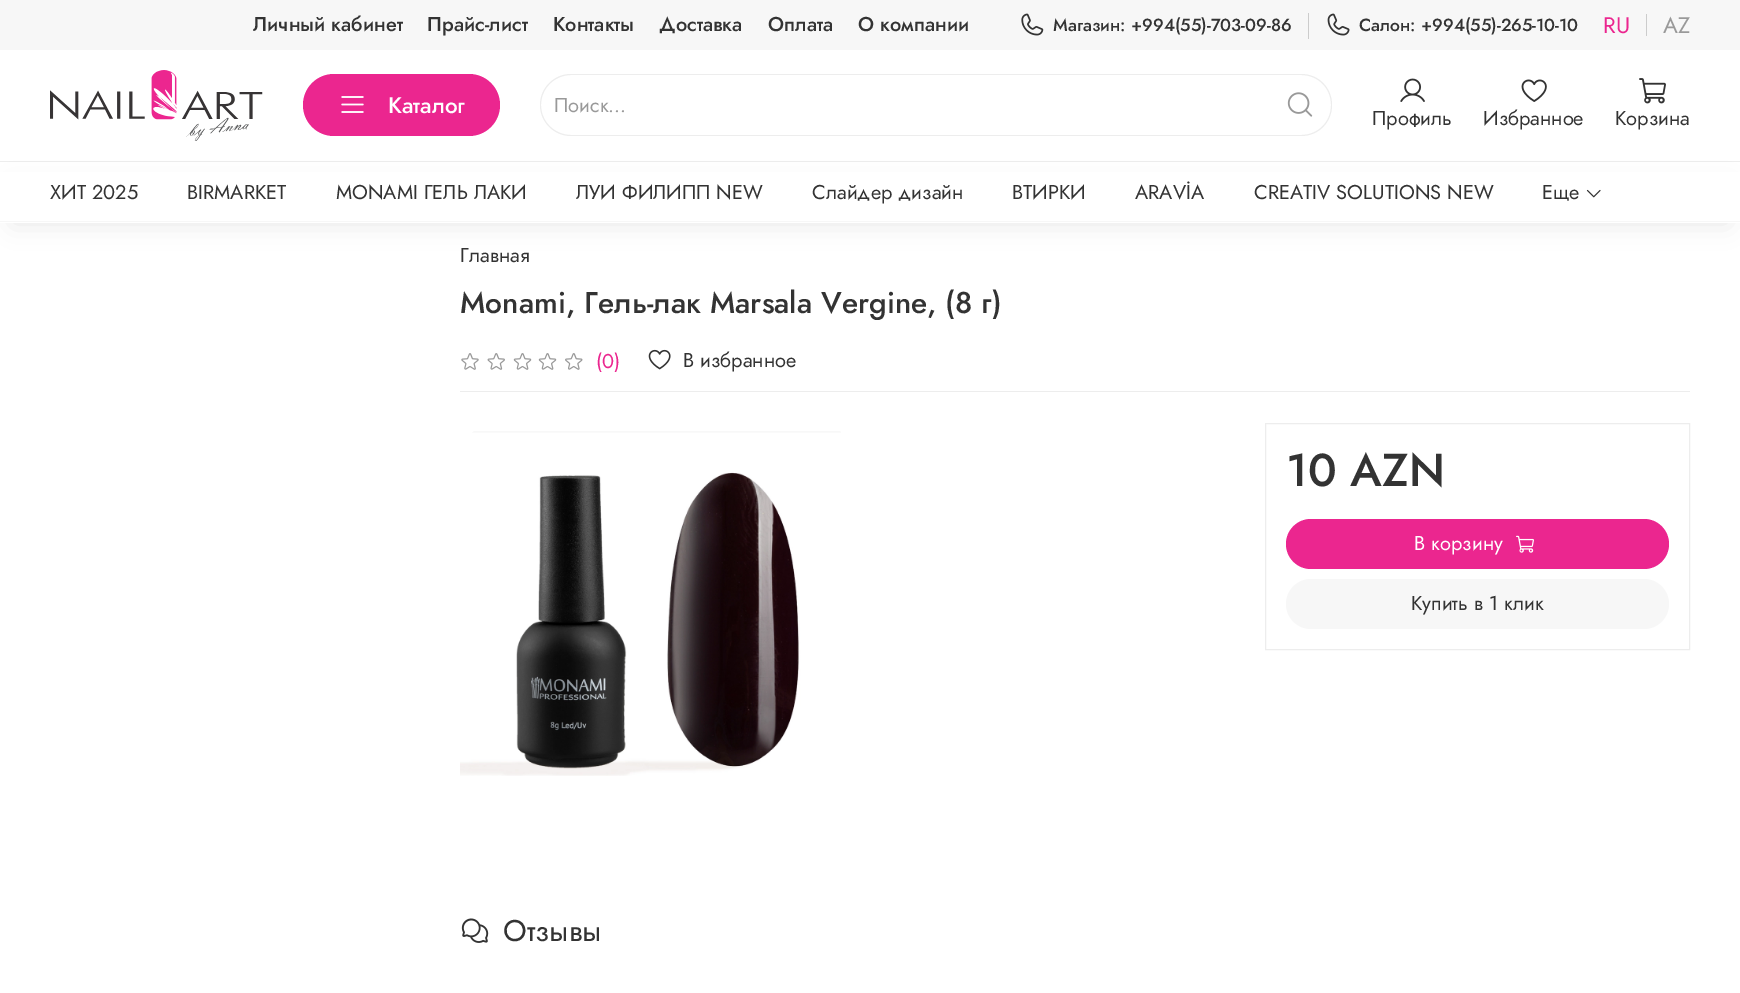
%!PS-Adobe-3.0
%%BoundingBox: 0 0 1740 993
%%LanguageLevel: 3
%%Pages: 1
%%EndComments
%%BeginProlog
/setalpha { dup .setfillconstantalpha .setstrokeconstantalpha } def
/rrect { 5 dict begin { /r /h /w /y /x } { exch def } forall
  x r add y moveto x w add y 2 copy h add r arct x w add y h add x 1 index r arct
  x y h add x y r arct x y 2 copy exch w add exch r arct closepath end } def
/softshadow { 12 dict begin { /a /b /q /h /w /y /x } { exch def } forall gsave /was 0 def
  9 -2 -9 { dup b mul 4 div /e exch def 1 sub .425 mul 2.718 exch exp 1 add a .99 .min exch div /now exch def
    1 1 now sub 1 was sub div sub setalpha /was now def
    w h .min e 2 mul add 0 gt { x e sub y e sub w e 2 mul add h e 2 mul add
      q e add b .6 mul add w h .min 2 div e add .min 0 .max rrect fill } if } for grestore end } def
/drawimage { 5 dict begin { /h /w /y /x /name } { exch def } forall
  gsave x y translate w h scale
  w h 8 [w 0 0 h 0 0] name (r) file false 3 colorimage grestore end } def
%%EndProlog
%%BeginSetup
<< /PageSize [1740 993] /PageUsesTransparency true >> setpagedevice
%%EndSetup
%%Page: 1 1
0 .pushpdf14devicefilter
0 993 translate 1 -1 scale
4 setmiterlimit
1 setgray
0 0 1740 993 rectfill
0.969 setgray
0 0 1740 50 rectfill
0.8 setgray
1308 13 1 26 rectfill
(images/1.raw) 1021 13 23 23 drawimage
(images/2.raw) 1327 13 23 23 drawimage
1646 14 1 22 rectfill
0.929 setgray
0 161 1740 1 rectfill
(images/3.raw) 50 70 213 71 drawimage
0.922 0.149 0.561 setrgbcolor
303 74 197 62 31 rrect fill
(images/4.raw) 341 96 23 17 drawimage
0.929 setgray
newpath 571 74 moveto 1270 74 lineto 1270 136 lineto 571 136 lineto 554 136 540 122 540 105 curveto 540 88 554 74 571 74 curveto closepath 571 75 moveto 1270 75 lineto 1270 135 lineto 571 135 lineto 555 135 541 122 541 105 curveto 541 88 555 75 571 75 curveto closepath eofill
newpath 1270 74 moveto 1301 74 lineto 1319 74 1332 88 1332 105 curveto 1332 122 1319 136 1301 136 curveto 1270 136 lineto closepath 1270 75 moveto 1301 75 lineto 1318 75 1331 88 1331 105 curveto 1331 122 1318 135 1301 135 curveto 1270 135 lineto closepath eofill
(images/5.raw) 1287 92 26 25 drawimage
(images/6.raw) 1400 78 25 24 drawimage
(images/7.raw) 1521 79 26 23 drawimage
(images/8.raw) 1639 78 27 26 drawimage
0 setgray
13 188 1715 35 0 12.5 0.1 softshadow
1 setgray
0 172 1740 51 rectfill
0.969 setgray
0 221 1740 1 rectfill
(images/9.raw) 1586 189 15 9 drawimage
(images/10.raw) 461 353 18 17 drawimage
(images/11.raw) 487 353 18 17 drawimage
(images/12.raw) 513 353 19 17 drawimage
(images/12.raw) 538 353 19 17 drawimage
(images/13.raw) 565 353 18 17 drawimage
(images/14.raw) 648 349 23 21 drawimage
0.929 setgray
460 391 1230 1 rectfill
(images/15.raw) 460 431 381 345 drawimage
1265.5 423.5 424 226 rectstroke
0.922 0.149 0.561 setrgbcolor
1286 519 383 50 25 rrect fill
(images/16.raw) 1516 535 18 18 drawimage
0.969 setgray
1286 579 383 50 25 rrect fill
(images/17.raw) 461 918 28 25 drawimage
/Jost-Medium [20 0 0 -20 0 0] selectfont
0.2 setgray
253 31 moveto (Личный кабинет) show
427 31 moveto (Прайс-лист) show
553 31 moveto (Контакты) show
659 31 moveto (Доставка) show
768 31 moveto (Оплата) show
858 31 moveto (О компании) show
/Jost-Medium [17.5 0 0 -17.5 0 0] selectfont
1053 31 moveto (Магазин: +994\(55\)-703-09-86) show
1359 31 moveto (Салон: +994\(55\)-265-10-10) show
/Jost-Regular [22.5 0 0 -22.5 0 0] selectfont
0.922 0.149 0.561 setrgbcolor
1603 33 moveto (RU) show
0.6 setgray
1663 33 moveto (AZ) show
/Jost-Medium [22.5 0 0 -22.5 0 0] selectfont
1 setgray
388 113 moveto (Каталог) show
/Jost-Regular [20 0 0 -20 0 0] selectfont
0.6 setgray
554 112 moveto (Поиск...) show
0.2 setgray
1372 125 moveto (Профиль) show
1483 125 moveto (Избранное) show
1615 125 moveto (Корзина) show
50 199 moveto (ХИТ 2025) show
187 199 moveto (BIRMARKET) show
336 199 moveto (MONAMI ГЕЛЬ ЛАКИ) show
576 199 moveto (ЛУИ ФИЛИПП NEW) show
812 199 moveto (Слайдер дизайн) show
1012 199 moveto (ВТИРКИ) show
1135 199 moveto (ARAVİA) show
1254 199 moveto (CREATIV SOLUTIONS NEW) show
1542 199 moveto (Еще) show
460 262 moveto (Главная) show
/Jost-Medium [30 0 0 -30 0 0] selectfont
460 313 moveto (Monami, Гель-лак Маrsala Vergine, \(8 г\)) show
/Jost-Regular [20 0 0 -20 0 0] selectfont
0.922 0.149 0.561 setrgbcolor
596 368 moveto (\(0\)) show
0.2 setgray
683 367 moveto (В избранное) show
/Jost-Medium [46 0 0 -46 0 0] selectfont
1286 486 moveto (10 AZN) show
/Jost-Regular [20 0 0 -20 0 0] selectfont
1 setgray
1414 550 moveto (В корзину) show
0.2 setgray
1411 610 moveto (Купить в 1 клик) show
/Jost-Regular [30 0 0 -30 0 0] selectfont
503 941 moveto (Отзывы) show
.poppdf14devicefilter showpage
%%EOF
